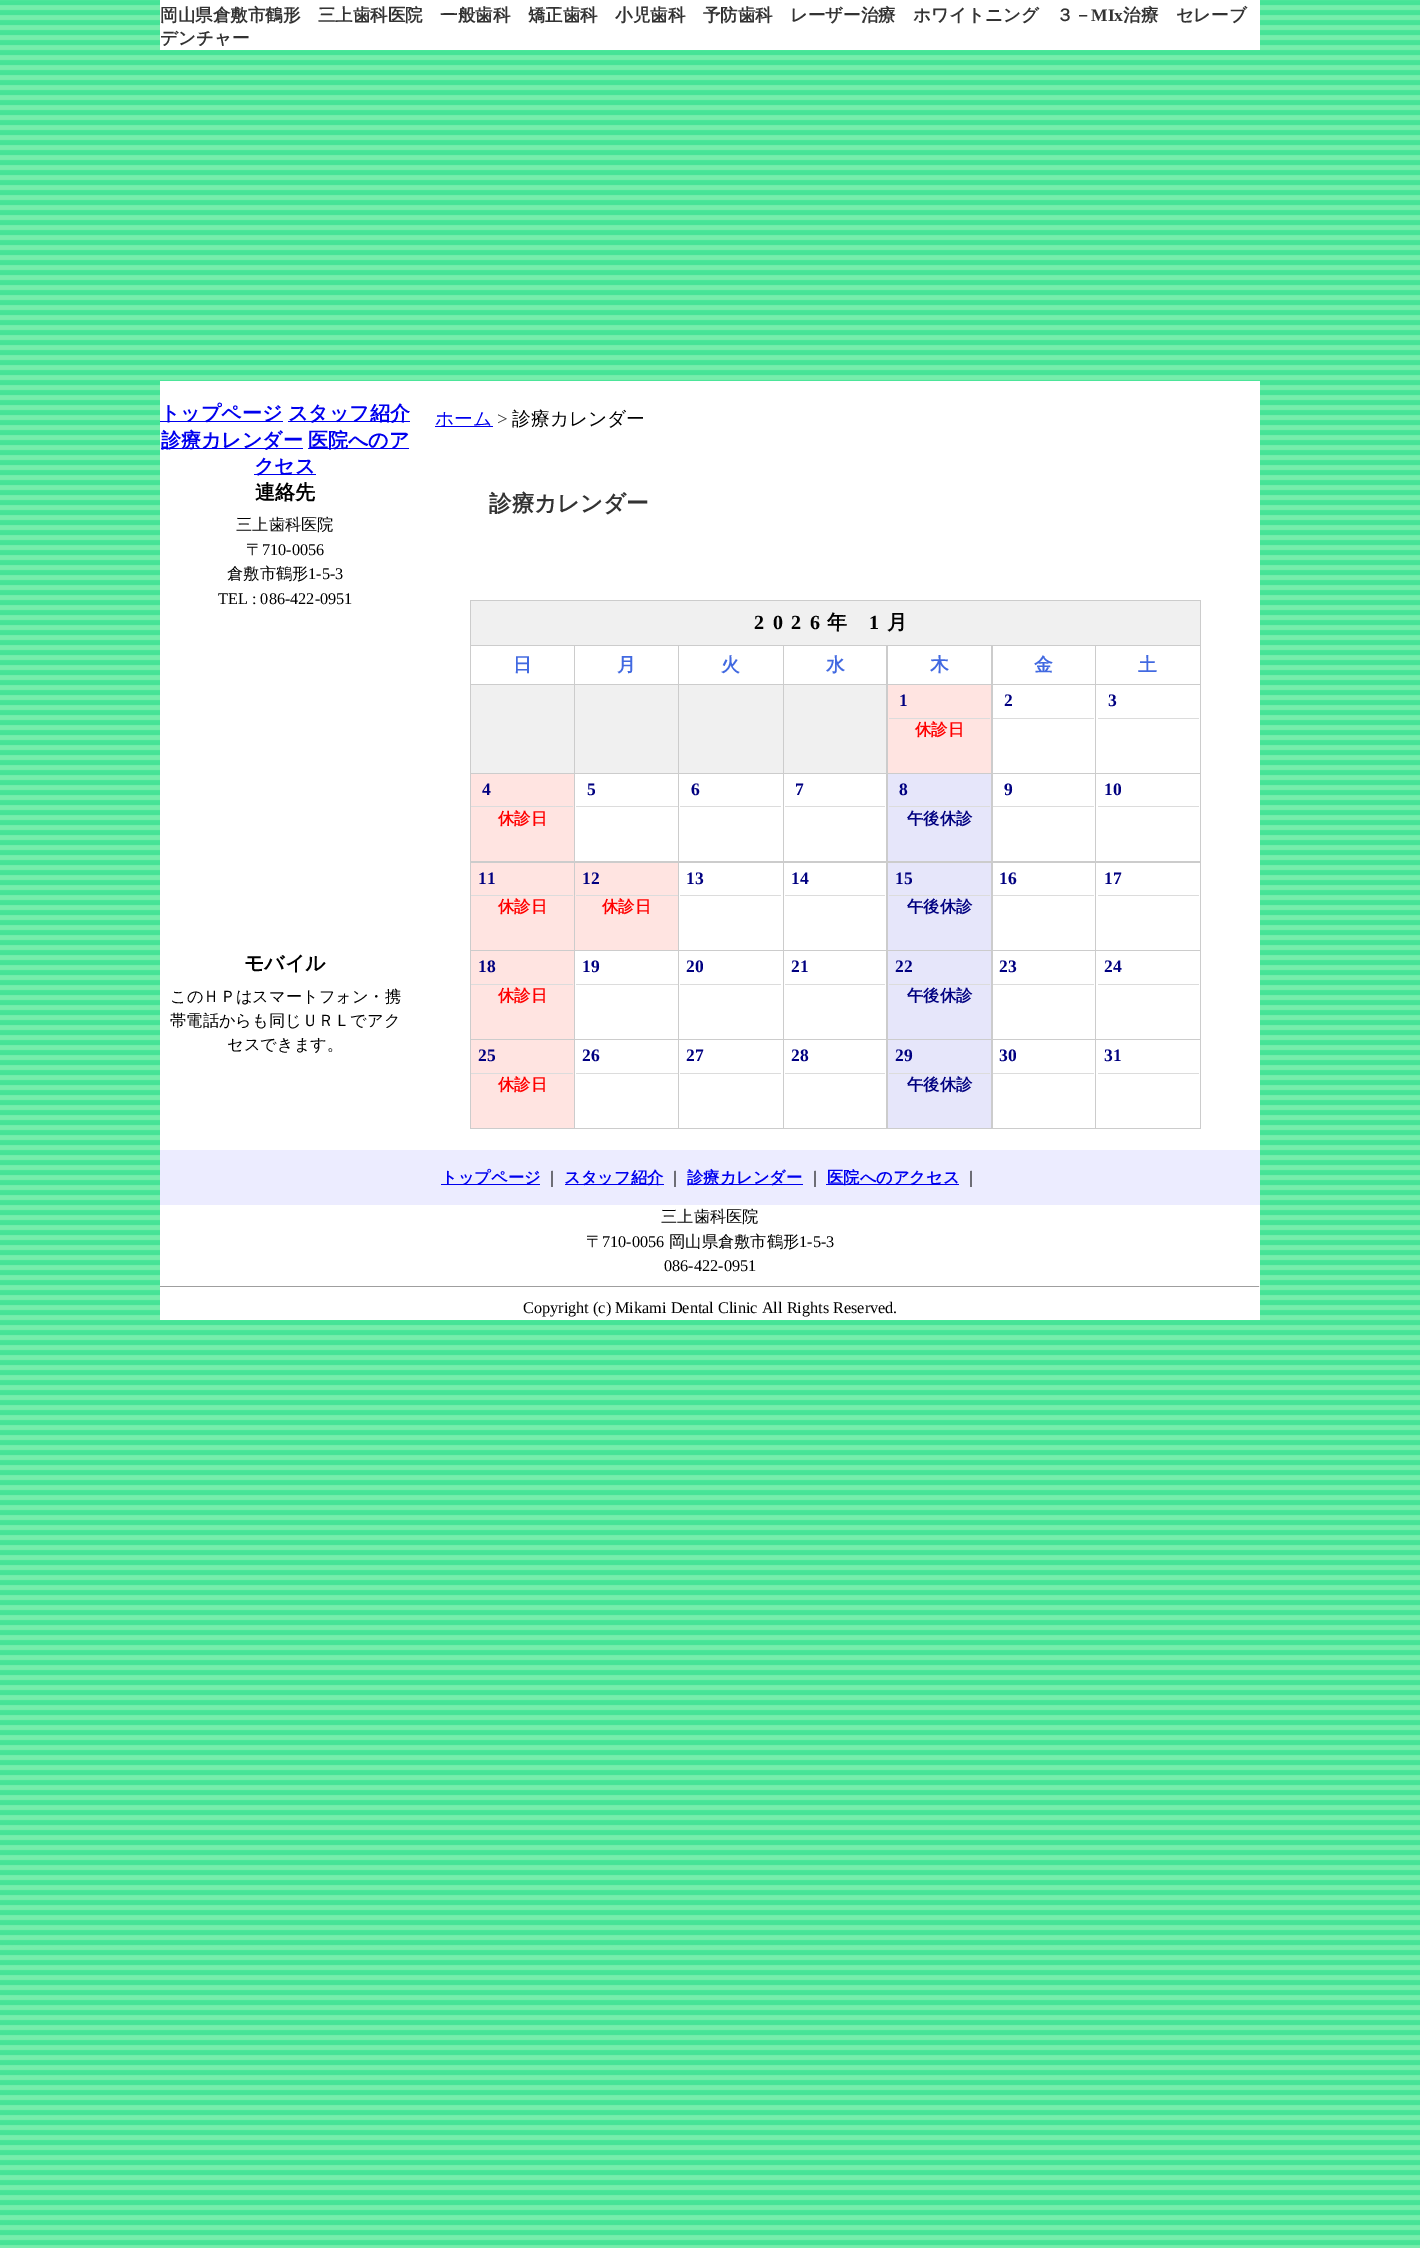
%!PS-Adobe-3.0
%%BoundingBox: 0 0 1420 2248
%%LanguageLevel: 3
%%Pages: 1
%%EndComments
%%BeginProlog
/drawimage { 5 dict begin { /h /w /y /x /name } { exch def } forall
  gsave x y translate w h scale
  w h 8 [w 0 0 h 0 0] name (r) file false 3 colorimage grestore end } def
%%EndProlog
%%BeginSetup
<< /PageSize [1420 2248] >> setpagedevice
%%EndSetup
%%Page: 1 1
0 2248 translate 1 -1 scale
4 setmiterlimit
1 setgray
0 0 1420 2248 rectfill
(images/1.raw) 0 0 1420 2248 drawimage
160 0 1100 50 rectfill
160 381 1100 769 rectfill
0 0 0.933 setrgbcolor
160 421 123 1 rectfill
288 421 122 1 rectfill
161 448 142 1 rectfill
308 448 101 1 rectfill
254 474 62 1 rectfill
435 426 58 1 rectfill
0.8 setgray
470 600 731 529 rectfill
0.941 setgray
471 601 729 44 rectfill
1 setgray
471 646 103 38 rectfill
575 646 103 38 rectfill
679 646 104 38 rectfill
784 646 102 38 rectfill
888 646 103 38 rectfill
993 646 102 38 rectfill
1096 646 104 38 rectfill
0.941 setgray
471 685 103 88 rectfill
575 685 103 88 rectfill
679 685 104 88 rectfill
784 685 102 88 rectfill
1 0.894 0.882 setrgbcolor
888 685 103 88 rectfill
0.863 setgray
889 718 101 1 rectfill
1 setgray
993 685 102 88 rectfill
0.863 setgray
993 718 101 1 rectfill
1 setgray
1096 685 104 88 rectfill
0.863 setgray
1098 718 101 1 rectfill
1 0.894 0.882 setrgbcolor
471 774 103 87 rectfill
0.863 setgray
471 806 102 1 rectfill
1 setgray
575 774 103 87 rectfill
0.863 setgray
576 806 102 1 rectfill
1 setgray
679 774 104 87 rectfill
0.863 setgray
680 806 101 1 rectfill
1 setgray
784 774 102 87 rectfill
0.863 setgray
785 806 100 1 rectfill
0.902 0.902 0.98 setrgbcolor
888 774 103 87 rectfill
0.863 setgray
889 806 101 1 rectfill
1 setgray
993 774 102 87 rectfill
0.863 setgray
993 806 101 1 rectfill
1 setgray
1096 774 104 87 rectfill
0.863 setgray
1098 806 101 1 rectfill
1 0.894 0.882 setrgbcolor
471 863 103 87 rectfill
0.863 setgray
471 895 102 1 rectfill
1 0.894 0.882 setrgbcolor
575 863 103 87 rectfill
0.863 setgray
576 895 102 1 rectfill
1 setgray
679 863 104 87 rectfill
0.863 setgray
680 895 101 1 rectfill
1 setgray
784 863 102 87 rectfill
0.863 setgray
785 895 100 1 rectfill
0.902 0.902 0.98 setrgbcolor
888 863 103 87 rectfill
0.863 setgray
889 895 101 1 rectfill
1 setgray
993 863 102 87 rectfill
0.863 setgray
993 895 101 1 rectfill
1 setgray
1096 863 104 87 rectfill
0.863 setgray
1098 895 101 1 rectfill
1 0.894 0.882 setrgbcolor
471 951 103 88 rectfill
0.863 setgray
471 984 102 1 rectfill
1 setgray
575 951 103 88 rectfill
0.863 setgray
576 984 102 1 rectfill
1 setgray
679 951 104 88 rectfill
0.863 setgray
680 984 101 1 rectfill
1 setgray
784 951 102 88 rectfill
0.863 setgray
785 984 100 1 rectfill
0.902 0.902 0.98 setrgbcolor
888 951 103 88 rectfill
0.863 setgray
889 984 101 1 rectfill
1 setgray
993 951 102 88 rectfill
0.863 setgray
993 984 101 1 rectfill
1 setgray
1096 951 104 88 rectfill
0.863 setgray
1098 984 101 1 rectfill
1 0.894 0.882 setrgbcolor
471 1040 103 88 rectfill
0.863 setgray
471 1073 102 1 rectfill
1 setgray
575 1040 103 88 rectfill
0.863 setgray
576 1073 102 1 rectfill
1 setgray
679 1040 104 88 rectfill
0.863 setgray
680 1073 101 1 rectfill
1 setgray
784 1040 102 88 rectfill
0.863 setgray
785 1073 100 1 rectfill
0.902 0.902 0.98 setrgbcolor
888 1040 103 88 rectfill
0.863 setgray
889 1073 101 1 rectfill
1 setgray
993 1040 102 88 rectfill
0.863 setgray
993 1073 101 1 rectfill
1 setgray
1096 1040 104 88 rectfill
0.863 setgray
1098 1073 101 1 rectfill
0.925 0.925 1 setrgbcolor
160 1150 1100 55 rectfill
0 0 0.933 setrgbcolor
441 1184 99 1 rectfill
565 1184 99 1 rectfill
688 1184 115 1 rectfill
826 1184 133 1 rectfill
1 setgray
160 1205 1100 115 rectfill
0.624 setgray
160 1286 1100 1 rectfill
0.933 setgray
1259 1286 1 1 rectfill
/WenQuanYiZenHei-Bold [17.5 0 0 -17.5 0 0] selectfont
0.2 setgray
160 21 moveto (岡山県倉敷市鶴形　三上歯科医院　一般歯科　矯正歯科　小児歯科　予防歯科　レーザー治療　ホワイトニング　３－) show
/LiberationSerif-Bold [17.5 0 0 -17.5 0 0] selectfont
1091 21 moveto (MIx) show
/WenQuanYiZenHei-Bold [17.5 0 0 -17.5 0 0] selectfont
1123 21 moveto (治療　セレーブ) show
160 44 moveto (デンチャー) show
/WenQuanYiZenHei-Bold [20 0 0 -20 0 0] selectfont
0 0 0.933 setrgbcolor
160 420 moveto (トップページ) show
288 420 moveto (スタッフ紹介) show
161 447 moveto (診療カレンダー) show
308 447 moveto (医院へのア) show
254 473 moveto (クセス) show
0 setgray
255 499 moveto (連絡先) show
/WenQuanYiZenHei-Medium [16.25 0 0 -16.25 0 0] selectfont
236 530 moveto (三上歯科医院) show
246 555 moveto (〒) show
/LiberationSerif-Regular [16.25 0 0 -16.25 0 0] selectfont
262 555 moveto (710-0056) show
/WenQuanYiZenHei-Medium [16.25 0 0 -16.25 0 0] selectfont
227 579 moveto (倉敷市鶴形) show
/LiberationSerif-Regular [16.25 0 0 -16.25 0 0] selectfont
308 579 moveto (1-5-3) show
218 604 moveto (TEL : 086-422-0951) show
/WenQuanYiZenHei-Bold [20 0 0 -20 0 0] selectfont
244 970 moveto (モバイル) show
/WenQuanYiZenHei-Medium [16.25 0 0 -16.25 0 0] selectfont
170 1002 moveto (このＨＰはスマートフォン・携) show
170 1026 moveto (帯電話からも同じＵＲＬでアク) show
227 1050 moveto (セスできます。) show
/WenQuanYiZenHei-Medium [18.75 0 0 -18.75 0 0] selectfont
0 0 0.933 setrgbcolor
435 425 moveto (ホーム) show
/LiberationSerif-Regular [18.75 0 0 -18.75 0 0] selectfont
0.2 setgray
497 425 moveto (>) show
/WenQuanYiZenHei-Medium [18.75 0 0 -18.75 0 0] selectfont
0 setgray
512 425 moveto (診療カレンダー) show
/WenQuanYiZenHei-Bold [22.5 0 0 -22.5 0 0] selectfont
0.2 setgray
489 511 moveto (診療カレンダー) show
/LiberationSerif-Bold [20 0 0 -20 0 0] selectfont
0 setgray
754 629 moveto 8.5 0 (2026) ashow
/WenQuanYiZenHei-Bold [20 0 0 -20 0 0] selectfont
827 629 moveto 8.5 0 (年) ashow
/LiberationSerif-Bold [20 0 0 -20 0 0] selectfont
869 629 moveto 8.5 0 (1) ashow
/WenQuanYiZenHei-Bold [20 0 0 -20 0 0] selectfont
887 629 moveto 8.5 0 (月) ashow
/WenQuanYiZenHei-Bold [18.75 0 0 -18.75 0 0] selectfont
0.255 0.412 0.882 setrgbcolor
513 671 moveto (日) show
617 671 moveto (月) show
721 671 moveto (火) show
826 671 moveto (水) show
930 671 moveto (木) show
1034 671 moveto (金) show
1138 671 moveto (土) show
/LiberationSerif-Bold [17.5 0 0 -17.5 0 0] selectfont
0 0 0.502 setrgbcolor
899 706 moveto (1) show
/WenQuanYiZenHei-Bold [16.25 0 0 -16.25 0 0] selectfont
1 0 0 setrgbcolor
915 735 moveto (休診日) show
/LiberationSerif-Bold [17.5 0 0 -17.5 0 0] selectfont
0 0 0.502 setrgbcolor
1004 706 moveto (2) show
1108 706 moveto (3) show
482 795 moveto (4) show
/WenQuanYiZenHei-Bold [16.25 0 0 -16.25 0 0] selectfont
1 0 0 setrgbcolor
498 824 moveto (休診日) show
/LiberationSerif-Bold [17.5 0 0 -17.5 0 0] selectfont
0 0 0.502 setrgbcolor
587 795 moveto (5) show
691 795 moveto (6) show
795 795 moveto (7) show
899 795 moveto (8) show
/WenQuanYiZenHei-Bold [16.25 0 0 -16.25 0 0] selectfont
907 824 moveto (午後休診) show
/LiberationSerif-Bold [17.5 0 0 -17.5 0 0] selectfont
1004 795 moveto (9) show
1104 795 moveto (10) show
478 884 moveto (11) show
/WenQuanYiZenHei-Bold [16.25 0 0 -16.25 0 0] selectfont
1 0 0 setrgbcolor
498 912 moveto (休診日) show
/LiberationSerif-Bold [17.5 0 0 -17.5 0 0] selectfont
0 0 0.502 setrgbcolor
582 884 moveto (12) show
/WenQuanYiZenHei-Bold [16.25 0 0 -16.25 0 0] selectfont
1 0 0 setrgbcolor
602 912 moveto (休診日) show
/LiberationSerif-Bold [17.5 0 0 -17.5 0 0] selectfont
0 0 0.502 setrgbcolor
686 884 moveto (13) show
791 884 moveto (14) show
895 884 moveto (15) show
/WenQuanYiZenHei-Bold [16.25 0 0 -16.25 0 0] selectfont
907 912 moveto (午後休診) show
/LiberationSerif-Bold [17.5 0 0 -17.5 0 0] selectfont
999 884 moveto (16) show
1104 884 moveto (17) show
478 972 moveto (18) show
/WenQuanYiZenHei-Bold [16.25 0 0 -16.25 0 0] selectfont
1 0 0 setrgbcolor
498 1001 moveto (休診日) show
/LiberationSerif-Bold [17.5 0 0 -17.5 0 0] selectfont
0 0 0.502 setrgbcolor
582 972 moveto (19) show
686 972 moveto (20) show
791 972 moveto (21) show
895 972 moveto (22) show
/WenQuanYiZenHei-Bold [16.25 0 0 -16.25 0 0] selectfont
907 1001 moveto (午後休診) show
/LiberationSerif-Bold [17.5 0 0 -17.5 0 0] selectfont
999 972 moveto (23) show
1104 972 moveto (24) show
478 1061 moveto (25) show
/WenQuanYiZenHei-Bold [16.25 0 0 -16.25 0 0] selectfont
1 0 0 setrgbcolor
498 1090 moveto (休診日) show
/LiberationSerif-Bold [17.5 0 0 -17.5 0 0] selectfont
0 0 0.502 setrgbcolor
582 1061 moveto (26) show
686 1061 moveto (27) show
791 1061 moveto (28) show
895 1061 moveto (29) show
/WenQuanYiZenHei-Bold [16.25 0 0 -16.25 0 0] selectfont
907 1090 moveto (午後休診) show
/LiberationSerif-Bold [17.5 0 0 -17.5 0 0] selectfont
999 1061 moveto (30) show
1104 1061 moveto (31) show
/WenQuanYiZenHei-Bold [16.25 0 0 -16.25 0 0] selectfont
0 0 0.933 setrgbcolor
441 1183 moveto (トップページ) show
/WenQuanYiZenHei-Medium [16.25 0 0 -16.25 0 0] selectfont
0 setgray
544 1183 moveto (｜) show
/WenQuanYiZenHei-Bold [16.25 0 0 -16.25 0 0] selectfont
0 0 0.933 setrgbcolor
564 1183 moveto (スタッフ紹介) show
/WenQuanYiZenHei-Medium [16.25 0 0 -16.25 0 0] selectfont
0 setgray
667 1183 moveto (｜) show
/WenQuanYiZenHei-Bold [16.25 0 0 -16.25 0 0] selectfont
0 0 0.933 setrgbcolor
687 1183 moveto (診療カレンダー) show
/WenQuanYiZenHei-Medium [16.25 0 0 -16.25 0 0] selectfont
0 setgray
807 1183 moveto (｜) show
/WenQuanYiZenHei-Bold [16.25 0 0 -16.25 0 0] selectfont
0 0 0.933 setrgbcolor
827 1183 moveto (医院へのアクセス) show
/WenQuanYiZenHei-Medium [16.25 0 0 -16.25 0 0] selectfont
0 setgray
963 1183 moveto (｜) show
661 1222 moveto (三上歯科医院) show
586 1247 moveto (〒) show
/LiberationSerif-Regular [16.25 0 0 -16.25 0 0] selectfont
602 1247 moveto (710-0056) show
/WenQuanYiZenHei-Medium [16.25 0 0 -16.25 0 0] selectfont
669 1247 moveto (岡山県倉敷市鶴形) show
/LiberationSerif-Regular [16.25 0 0 -16.25 0 0] selectfont
799 1247 moveto (1-5-3) show
664 1271 moveto (086-422-0951) show
523 1313 moveto (Copyright \(c\) Mikami Dental Clinic All Rights Reserved.) show
showpage
%%EOF
